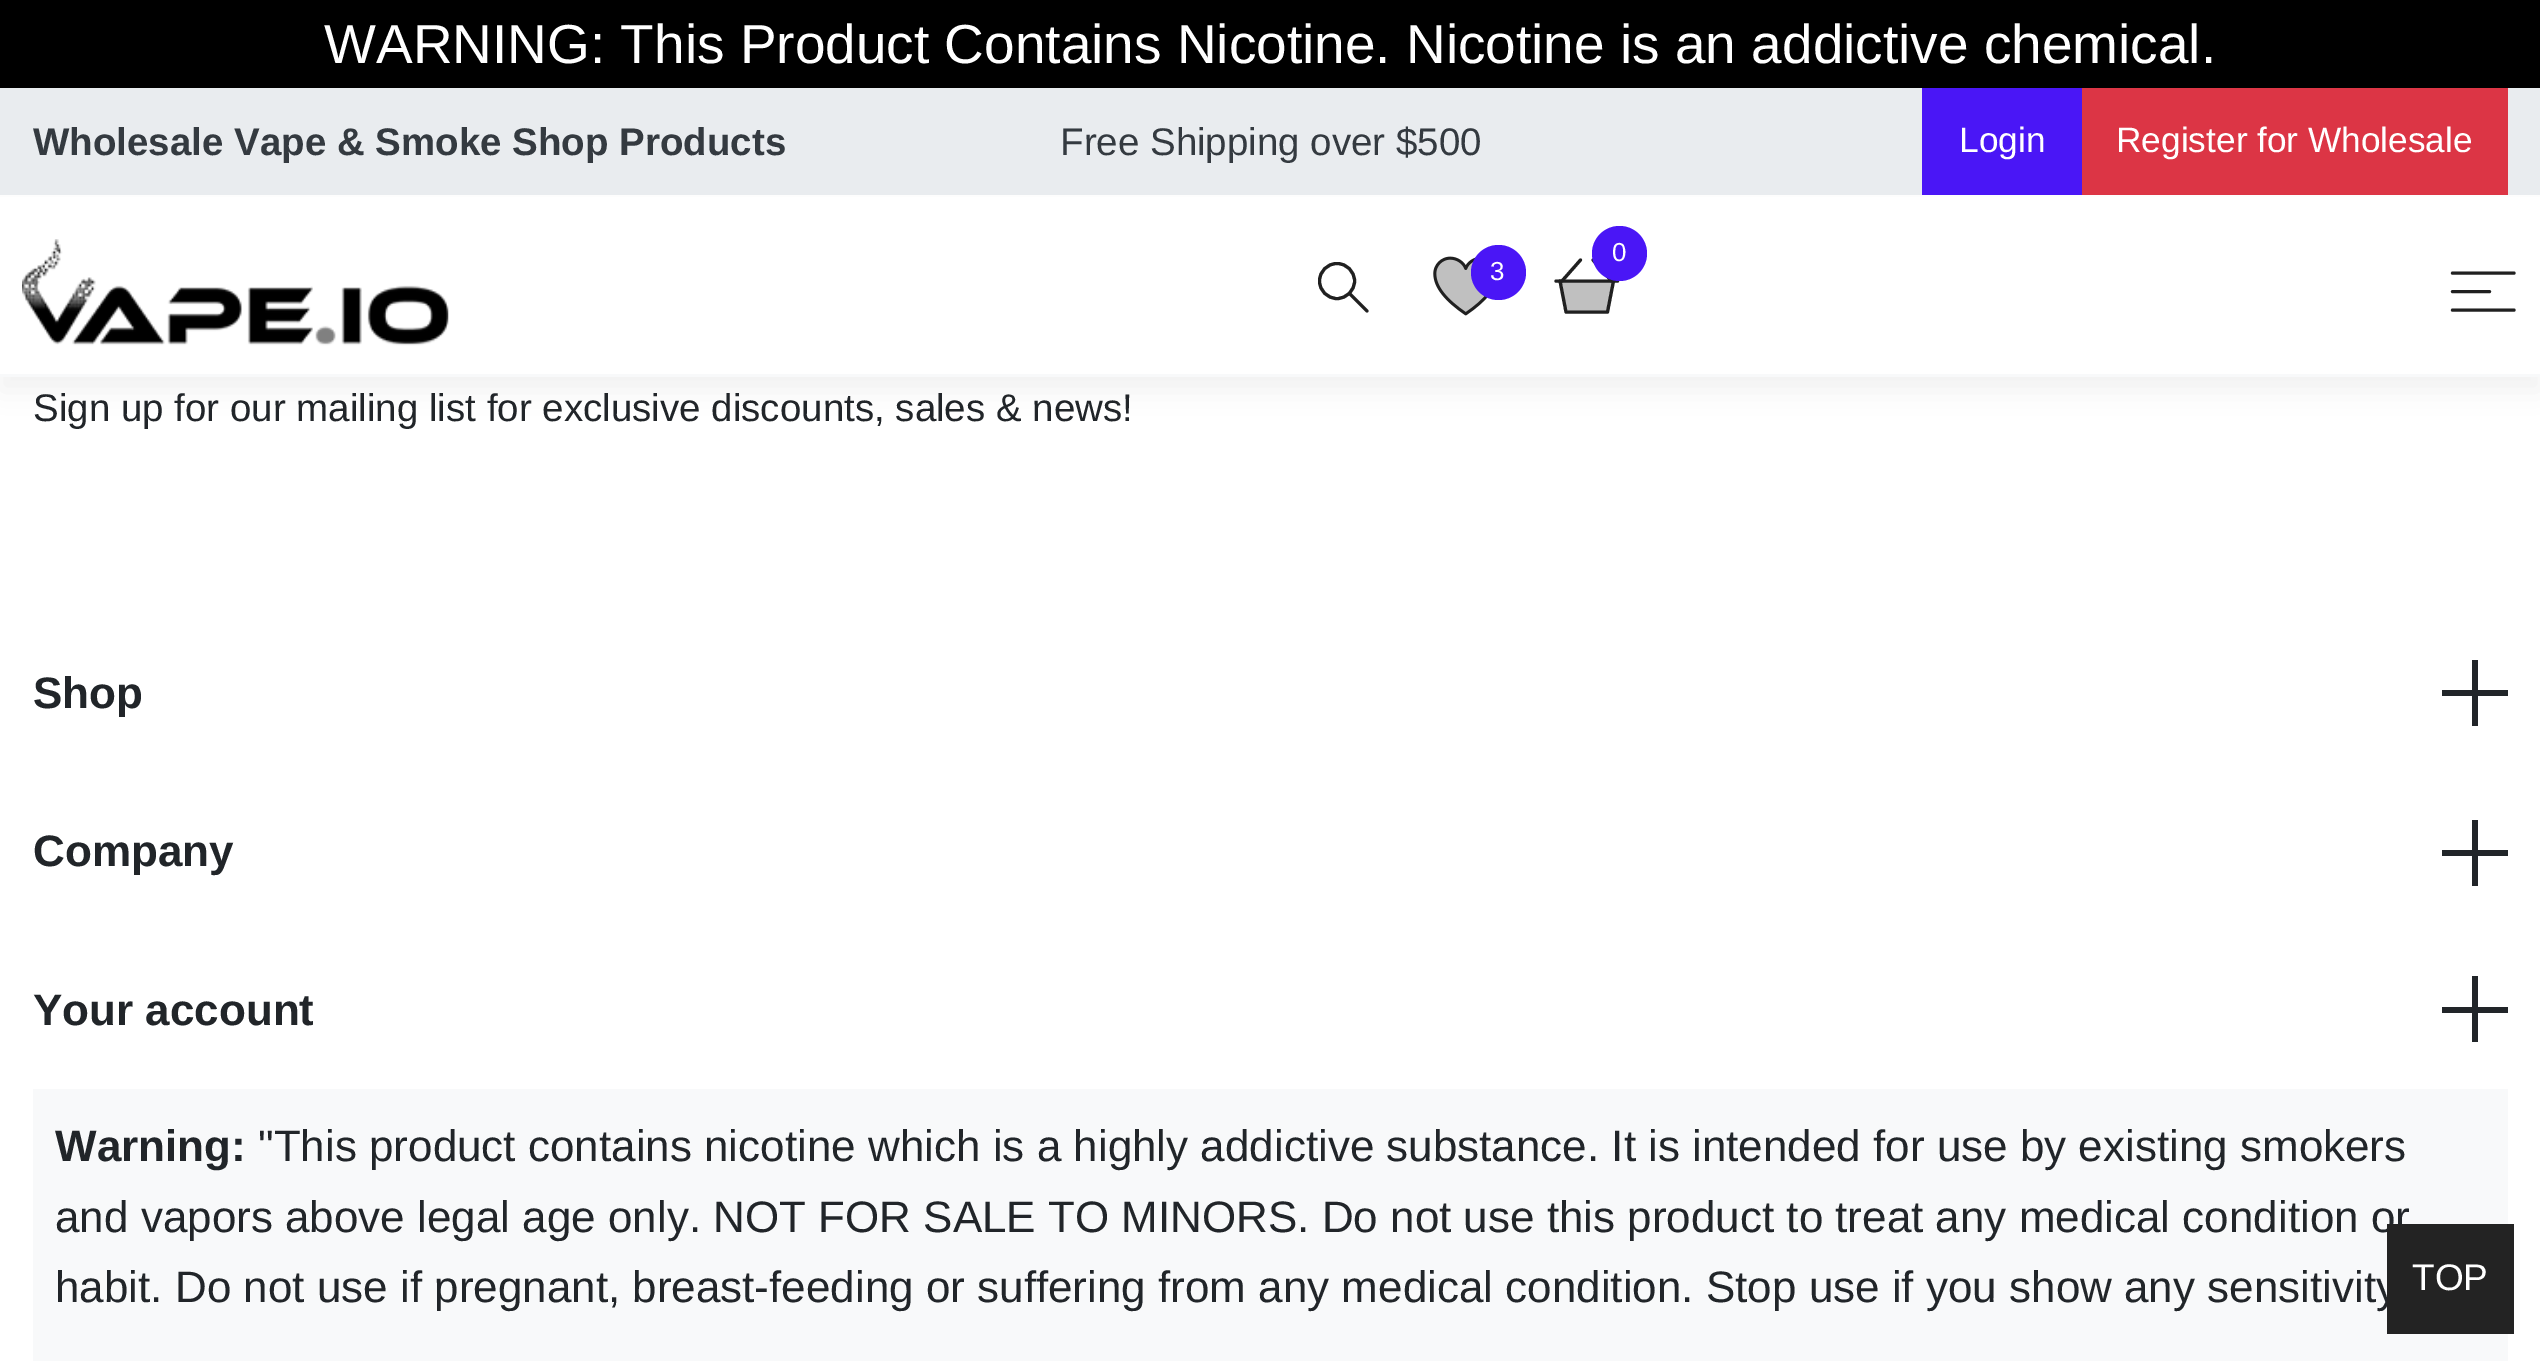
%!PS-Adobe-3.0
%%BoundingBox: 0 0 2540 1361
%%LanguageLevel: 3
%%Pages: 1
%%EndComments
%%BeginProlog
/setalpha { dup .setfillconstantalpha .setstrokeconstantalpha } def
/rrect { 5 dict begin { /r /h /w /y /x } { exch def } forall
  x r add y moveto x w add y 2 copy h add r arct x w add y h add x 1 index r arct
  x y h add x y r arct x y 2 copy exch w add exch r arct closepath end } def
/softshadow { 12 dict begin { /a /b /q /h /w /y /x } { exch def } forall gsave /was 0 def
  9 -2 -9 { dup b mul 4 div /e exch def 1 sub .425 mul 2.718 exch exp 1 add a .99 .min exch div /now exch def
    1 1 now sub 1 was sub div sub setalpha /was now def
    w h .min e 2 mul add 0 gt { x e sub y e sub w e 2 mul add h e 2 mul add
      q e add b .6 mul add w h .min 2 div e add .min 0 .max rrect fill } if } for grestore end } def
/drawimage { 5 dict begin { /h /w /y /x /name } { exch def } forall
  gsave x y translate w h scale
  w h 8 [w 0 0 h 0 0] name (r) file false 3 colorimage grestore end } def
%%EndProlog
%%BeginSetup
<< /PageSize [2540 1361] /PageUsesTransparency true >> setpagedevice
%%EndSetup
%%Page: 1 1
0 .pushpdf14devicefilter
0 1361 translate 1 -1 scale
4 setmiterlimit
1 setgray
0 0 2540 1361 rectfill
0 setgray
0 0 2540 88 rectfill
0 209 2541 182 0 14 0.05 softshadow
0.914 0.925 0.937 setrgbcolor
0 88 2540 107 rectfill
0.29 0.086 0.965 setrgbcolor
1922 88 160 107 rectfill
0.863 0.208 0.271 setrgbcolor
2082 88 426 107 rectfill
1 setgray
0 197 2540 177 rectfill
0.973 0.976 0.98 setrgbcolor
0 374 2540 3 rectfill
(images/1.raw) 22 239 427 107 drawimage
0.753 setgray
newpath 1560 281 moveto 1566 312 lineto 1607 312 lineto 1614 281 lineto fill
0.125 setgray
3.1 setlinewidth
1 setlinecap
1 setlinejoin
newpath 1560 281 moveto 1566 312 lineto 1607.5 312 lineto 1613.5 281 lineto 1580.5 260 moveto 1562 281 lineto 1593 260 moveto 1611.5 281 lineto stroke
newpath 1556 281 moveto 1617.5 281 lineto stroke
0.29 0.086 0.965 setrgbcolor
newpath 1619.5 253.5 27.5 0 360 arc closepath fill
0.125 setgray
newpath 1349.5 293.5 moveto 1367 311 lineto stroke
0 setlinecap
0 setlinejoin
newpath 1337 281 17.5 0 360 arc closepath stroke
(images/2.raw) 1433 256 55 60 drawimage
0.29 0.086 0.965 setrgbcolor
newpath 1498.5 272.5 27.5 0 360 arc closepath fill
0.125 setgray
1 setlinecap
1 setlinejoin
newpath 2452.5 273 moveto 2514 273 lineto 2452.5 291.5 moveto 2489.5 291.5 lineto stroke
newpath 2452.5 310 moveto 2514 310 lineto stroke
0.129 0.145 0.161 setrgbcolor
2472 660 6 66 rectfill
2442 690 66 6 rectfill
2472 820 6 66 rectfill
2442 850 66 6 rectfill
2472 976 6 66 rectfill
2442 1007 66 6 rectfill
0.973 0.976 0.98 setrgbcolor
33 1089 2475 272 rectfill
/LiberationSans-Regular [55 0 0 -55 0 0] selectfont
1 setgray
324 63 moveto (WARNING: This Product Contains Nicotine. Nicotine is an addictive chemical.) show
/LiberationSans-Bold [38.5 0 0 -38.5 0 0] selectfont
0.204 0.227 0.251 setrgbcolor
33 155 moveto (Wholesale Vape & Smoke Shop Products) show
/LiberationSans-Regular [38.5 0 0 -38.5 0 0] selectfont
1060 155 moveto (Free Shipping over $500) show
/LiberationSans-Regular [35.25 0 0 -35.25 0 0] selectfont
1 setgray
1959 152 moveto (Login) show
2116 152 moveto (Register for Wholesale) show
/LiberationSans-Regular [26 0 0 -26 0 0] selectfont
1612 261 moveto (0) show
1490 280 moveto (3) show
/LiberationSans-Regular [38.5 0 0 -38.5 0 0] selectfont
0.129 0.145 0.161 setrgbcolor
33 421 moveto (Sign up for our mailing list for exclusive discounts, sales & news!) show
/LiberationSans-Bold [44 0 0 -44 0 0] selectfont
33 708 moveto (Shop) show
33 866 moveto (Company) show
33 1025 moveto (Your account) show
55 1161 moveto (Warning:) show
/LiberationSans-Regular [44 0 0 -44 0 0] selectfont
258 1161 moveto ("This product contains nicotine which is a highly addictive substance. It is intended for use by existing smokers) show
55 1232 moveto (and vapors above legal age only. NOT FOR SALE TO MINORS. Do not use this product to treat any medical condition or) show
55 1302 moveto (habit. Do not use if pregnant, breast-feeding or suffering from any medical condition. Stop use if you show any sensitivity) show
0.137 setgray
2387 1224 127 110 rectfill
/LiberationSans-Regular [37 0 0 -37 0 0] selectfont
1 setgray
2412 1290 moveto (TOP) show
.poppdf14devicefilter showpage
%%EOF
